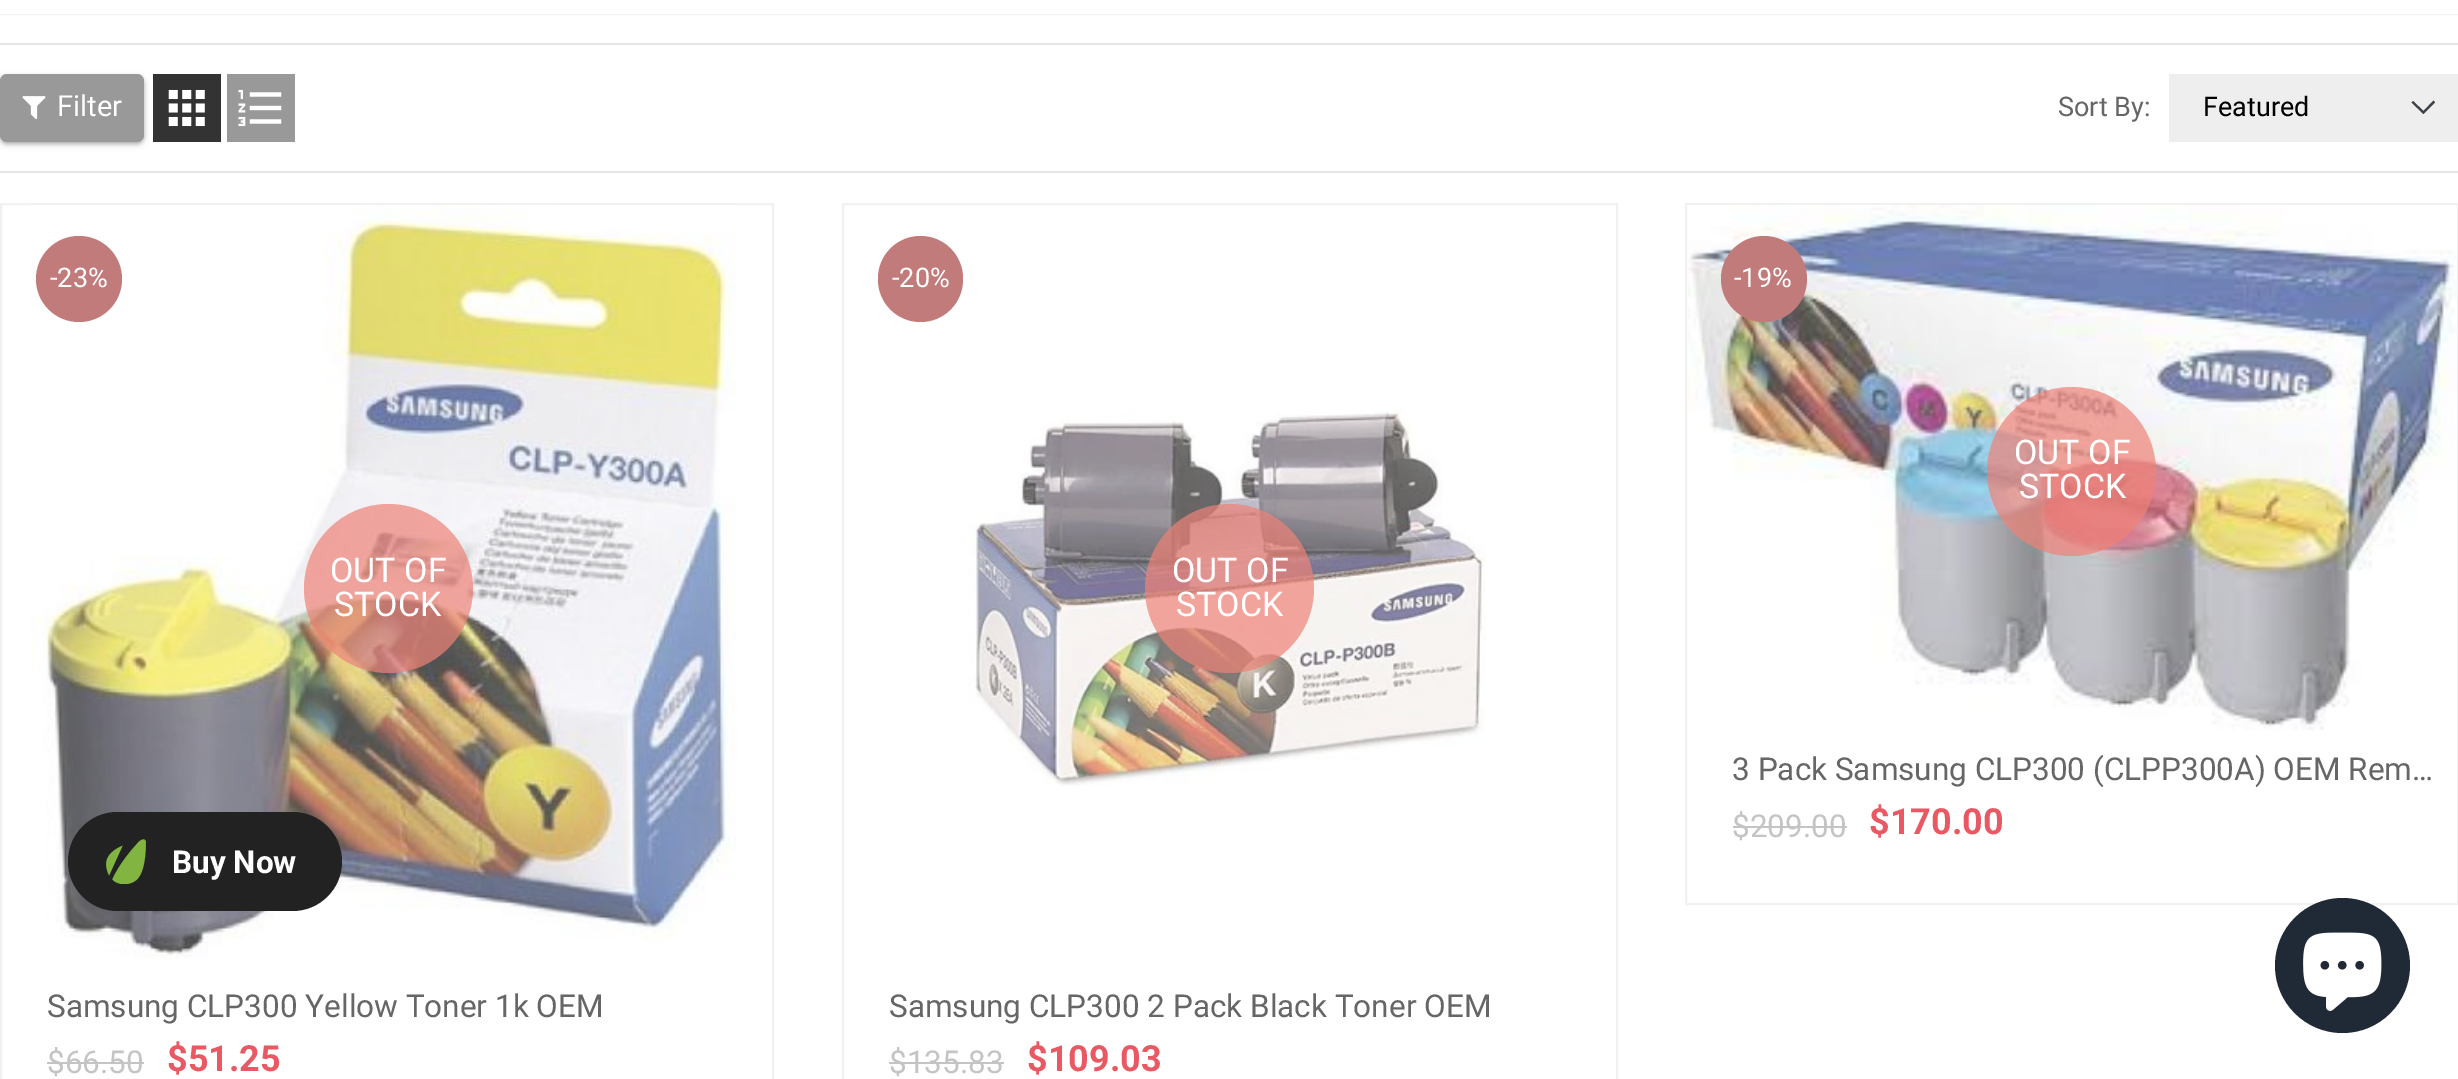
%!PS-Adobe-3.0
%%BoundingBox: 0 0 2458 1079
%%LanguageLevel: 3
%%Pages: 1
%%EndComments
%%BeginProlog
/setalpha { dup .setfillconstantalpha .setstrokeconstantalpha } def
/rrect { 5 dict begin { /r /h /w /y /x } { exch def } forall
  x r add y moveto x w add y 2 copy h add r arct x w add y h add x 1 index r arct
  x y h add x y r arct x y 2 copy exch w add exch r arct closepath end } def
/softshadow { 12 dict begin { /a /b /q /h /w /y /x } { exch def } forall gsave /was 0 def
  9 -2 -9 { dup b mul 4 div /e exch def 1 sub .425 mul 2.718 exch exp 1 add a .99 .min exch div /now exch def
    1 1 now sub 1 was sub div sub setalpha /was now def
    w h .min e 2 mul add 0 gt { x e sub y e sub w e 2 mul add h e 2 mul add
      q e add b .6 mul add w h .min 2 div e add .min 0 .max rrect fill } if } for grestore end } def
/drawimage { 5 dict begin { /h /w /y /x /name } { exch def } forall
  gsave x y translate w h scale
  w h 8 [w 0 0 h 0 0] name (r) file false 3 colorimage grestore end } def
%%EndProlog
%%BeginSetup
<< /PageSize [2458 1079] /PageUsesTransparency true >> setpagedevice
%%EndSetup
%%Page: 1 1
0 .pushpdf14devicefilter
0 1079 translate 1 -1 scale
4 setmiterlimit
1 setgray
0 0 2458 1079 rectfill
gsave
newpath 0 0 moveto 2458 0 lineto 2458 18 lineto 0 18 lineto closepath 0 -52 moveto 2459 -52 lineto 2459 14 lineto 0 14 lineto closepath eoclip newpath
0 setgray
0 -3 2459 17 0 1 0.15 softshadow
grestore
0.902 setgray
0 43 2458 2 rectfill
0 setgray
0 77 144 67 7 2 0.24 softshadow
0 77 144 67 7 3.5 0.12 softshadow
0.6 setgray
0 74 144 68 7 rrect fill
(images/1.raw) 22 96 24 23 drawimage
0.2 setgray
153 74 68 68 rectfill
(images/2.raw) 168 89 37 38 drawimage
0.6 setgray
227 74 68 68 rectfill
(images/3.raw) 238 89 44 38 drawimage
0.933 setgray
2169 74 289 68 rectfill
0.239 0.259 0.275 setrgbcolor
newpath 2423.5 114 moveto 2411.5 102.5 lineto 2413 101 lineto 2423.5 111 lineto 2433.5 100.5 lineto 2435 102.5 lineto closepath fill
0.902 setgray
0 171 2458 2 rectfill
0.945 setgray
2 setlinewidth
1 204 772 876 rectstroke
(images/4.raw) 31 205 705 754 drawimage
0.757 0.482 0.482 setrgbcolor
newpath 79 279 43 0 360 arc closepath fill
0.7 setalpha
0.933 0.51 0.467 setrgbcolor
newpath 388.5 588.5 84.5 0 360 arc closepath fill
1 setalpha
0.769 setgray
47 1062 97 2 rectfill
0.945 setgray
843 204 774 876 rectstroke
0.757 0.482 0.482 setrgbcolor
878 236 85 86 42.5 rrect fill
(images/5.raw) 967 410 519 376 drawimage
0.7 setalpha
0.933 0.51 0.467 setrgbcolor
newpath 1229.5 588.5 84.5 0 360 arc closepath fill
1 setalpha
0.769 setgray
889 1062 115 2 rectfill
0.945 setgray
1686 204 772 700 rectstroke
(images/6.raw) 1688 205 769 526 drawimage
0.757 0.482 0.482 setrgbcolor
newpath 1764 279 43 0 360 arc closepath fill
0.7 setalpha
0.933 0.51 0.467 setrgbcolor
newpath 2071.5 471.5 84.5 0 360 arc closepath fill
1 setalpha
0.769 setgray
1733 826 114 2 rectfill
0.133 setgray
68 812 274 99 49.5 rrect fill
(images/7.raw) 106 839 40 45 drawimage
0.125 0.165 0.212 setrgbcolor
newpath 2342.5 965.5 67.5 0 360 arc closepath fill
(images/8.raw) 2303 932 79 79 drawimage
/Roboto-Regular [29 0 0 -29 0 0] selectfont
1 setgray
57 116 moveto (Filter) show
/Roboto-Regular [27 0 0 -27 0 0] selectfont
0.4 setgray
2058 116 moveto (Sort By:) show
0 setgray
2203 116 moveto (Featured) show
1 setgray
50 287 moveto (-23%) show
/Roboto-Regular [34 0 0 -34 0 0] selectfont
330 582 moveto (OUT OF) show
334 616 moveto (STOCK) show
/Roboto-Regular [31.5 0 0 -31.5 0 0] selectfont
0.4 setgray
47 1017 moveto (Samsung CLP300 Yellow Toner 1k OEM) show
0.769 setgray
47 1073 moveto ($66.50) show
/Roboto-Bold [36 0 0 -36 0 0] selectfont
0.914 0.349 0.392 setrgbcolor
167 1071 moveto ($51.25) show
/Roboto-Regular [27 0 0 -27 0 0] selectfont
1 setgray
892 287 moveto (-20%) show
/Roboto-Regular [34 0 0 -34 0 0] selectfont
1172 582 moveto (OUT OF) show
1176 616 moveto (STOCK) show
/Roboto-Regular [31.5 0 0 -31.5 0 0] selectfont
0.4 setgray
889 1017 moveto (Samsung CLP300 2 Pack Black Toner OEM) show
0.769 setgray
889 1073 moveto ($135.83) show
/Roboto-Bold [36 0 0 -36 0 0] selectfont
0.914 0.349 0.392 setrgbcolor
1027 1071 moveto ($109.03) show
/Roboto-Regular [27 0 0 -27 0 0] selectfont
1 setgray
1734 287 moveto (-19%) show
/Roboto-Regular [34 0 0 -34 0 0] selectfont
2014 464 moveto (OUT OF) show
2019 498 moveto (STOCK) show
/Roboto-Regular [31.5 0 0 -31.5 0 0] selectfont
0.4 setgray
1732 780 moveto (3 Pack Samsung CLP300 \(CLPP300A\) OEM Rem…) show
0.769 setgray
1732 837 moveto ($209.00) show
/Roboto-Bold [36 0 0 -36 0 0] selectfont
0.914 0.349 0.392 setrgbcolor
1869 834 moveto ($170.00) show
/Roboto-Bold [31.5 0 0 -31.5 0 0] selectfont
1 setgray
172 873 moveto (Buy Now) show
.poppdf14devicefilter showpage
%%EOF
